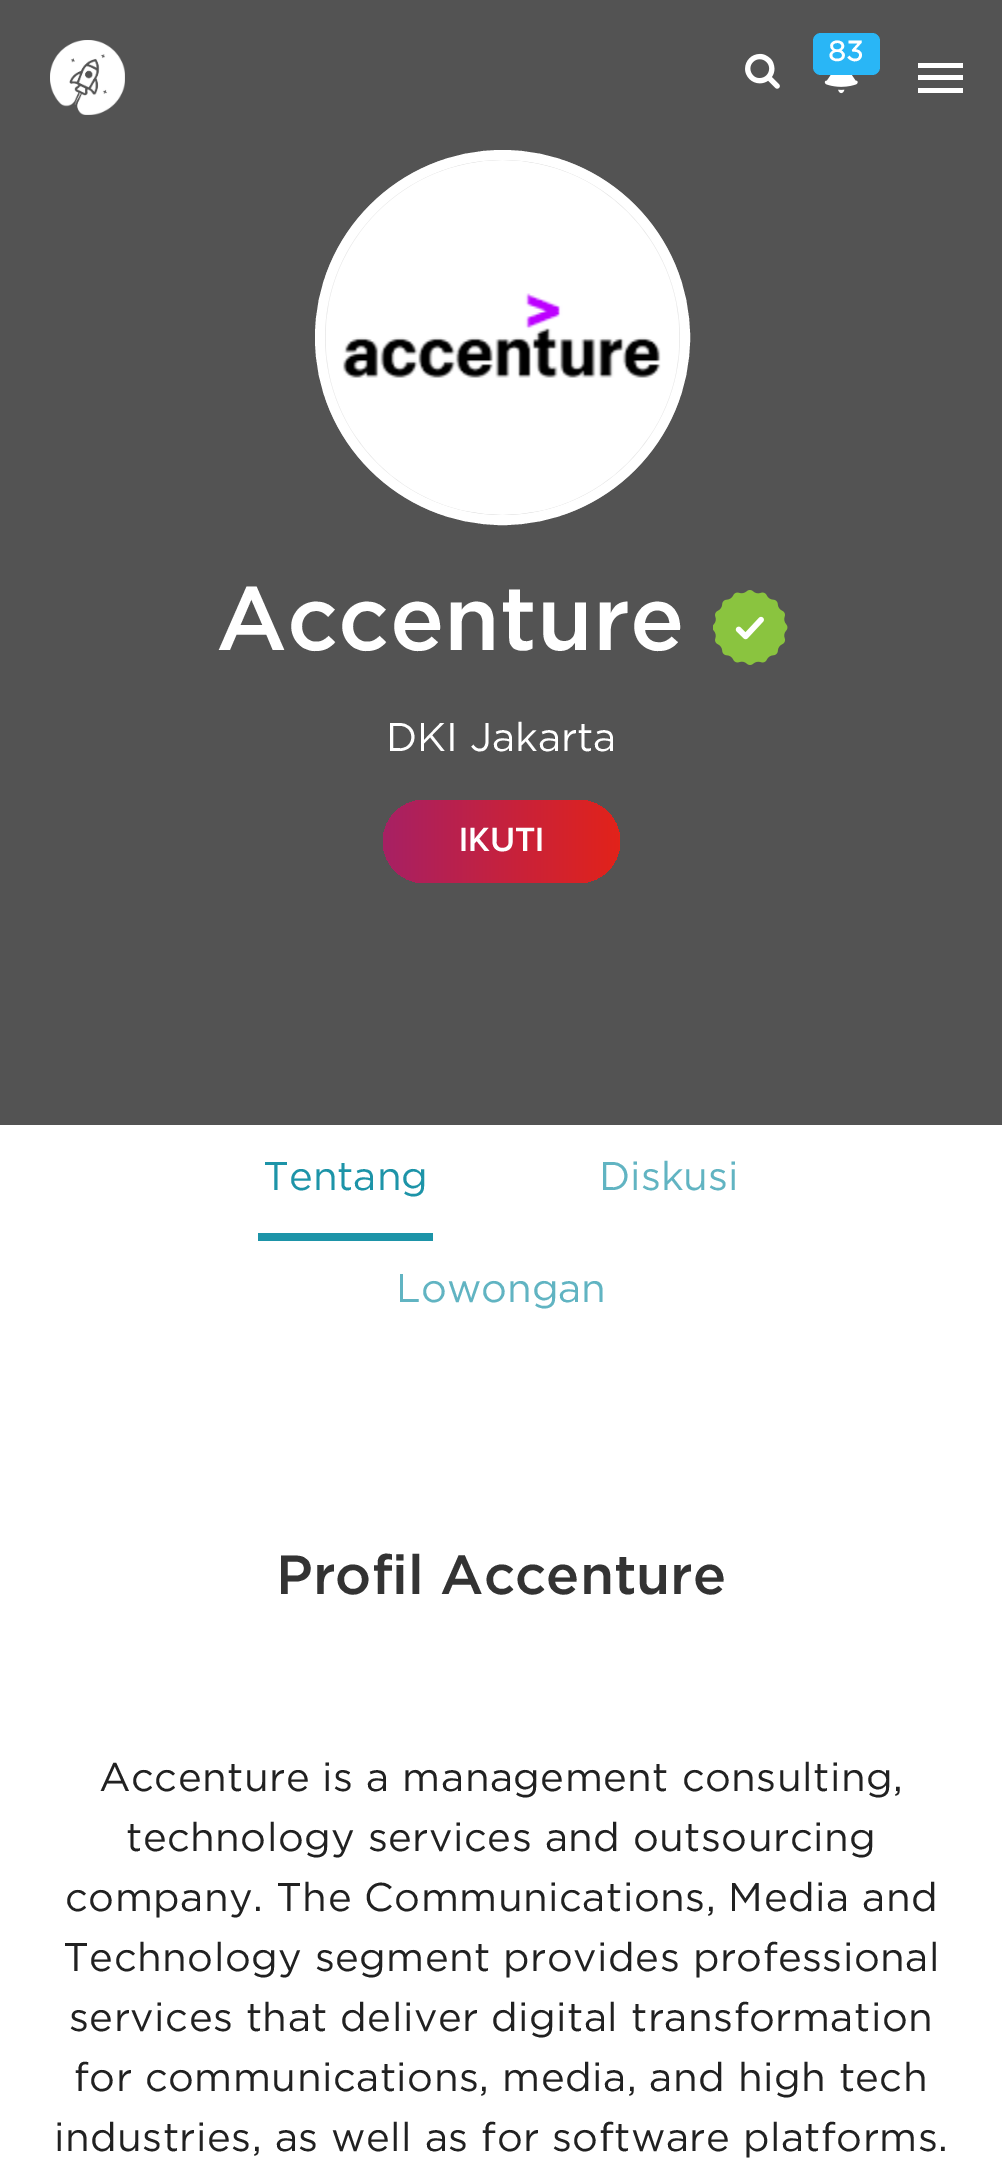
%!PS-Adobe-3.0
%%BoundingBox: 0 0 1002 2170
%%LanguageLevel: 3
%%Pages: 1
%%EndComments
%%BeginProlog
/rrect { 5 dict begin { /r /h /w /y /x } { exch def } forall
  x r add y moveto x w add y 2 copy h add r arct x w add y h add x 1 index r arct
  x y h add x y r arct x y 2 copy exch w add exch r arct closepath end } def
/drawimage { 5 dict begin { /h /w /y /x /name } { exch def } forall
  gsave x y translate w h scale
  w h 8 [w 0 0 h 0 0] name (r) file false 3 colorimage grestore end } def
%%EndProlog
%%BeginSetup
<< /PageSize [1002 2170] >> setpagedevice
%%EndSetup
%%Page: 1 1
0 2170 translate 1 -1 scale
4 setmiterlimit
1 setgray
0 0 1002 2170 rectfill
0.325 setgray
0 0 1002 1125 rectfill
(images/1.raw) 50 40 75 75 drawimage
(images/2.raw) 745 53 35 36 drawimage
0.161 0.714 0.965 setrgbcolor
813 33 67 42 8 rrect fill
(images/3.raw) 824 75 34 19 drawimage
1 setgray
918 75 45 5 rectfill
918 63 45 5 rectfill
918 88 45 5 rectfill
0.8 setgray
newpath 502.5 337.5 182.5 0 360 arc closepath gsave fill grestore
1 setgray
10 setlinewidth
stroke
(images/4.raw) 325 160 355 355 drawimage
(images/5.raw) 713 590 75 75 drawimage
gsave 383 800 237 83 41.5 rrect clip newpath
<< /ShadingType 2 /ColorSpace /DeviceRGB /Coords [383 841 620 841] /Extend [true true] /Function << /FunctionType 2 /Domain [0 1] /C0 [0.655 0.125 0.392] /C1 [0.886 0.137 0.102] /N 1 >> >> shfill grestore
0.114 0.58 0.659 setrgbcolor
258 1233 175 8 rectfill
/Gotham-Bold [28 0 0 -28 0 0] selectfont
1 setgray
828 61 moveto (83) show
/Gotham-Medium [90 0 0 -90 0 0] selectfont
216 650 moveto (Accenture) show
/Gotham-Regular [40 0 0 -40 0 0] selectfont
386 751 moveto (DKI Jakarta) show
/ProximaNova-SemiBold [35 0 0 -35 0 0] selectfont
459 851 moveto (IKUTI) show
/Gotham-Regular [40 0 0 -40 0 0] selectfont
0.114 0.58 0.659 setrgbcolor
263 1190 moveto (Tentang) show
0.38 0.706 0.761 setrgbcolor
599 1190 moveto (Diskusi) show
396 1302 moveto (Lowongan) show
/Gotham-Medium [55 0 0 -55 0 0] selectfont
0.2 setgray
276 1594 moveto (Profil Accenture) show
/Gotham-Regular [40 0 0 -40 0 0] selectfont
0.129 setgray
99 1791 moveto 0.5 0 (Accenture is a management consulting,) ashow
126 1851 moveto 0.5 0 (technology services and outsourcing) ashow
65 1911 moveto 0.5 0 (company. The Communications, Media and) ashow
63 1971 moveto 0.5 0 (Technology segment provides professional) ashow
69 2031 moveto 0.5 0 (services that deliver digital transformation) ashow
74 2091 moveto 0.5 0 (for communications, media, and high tech) ashow
54 2151 moveto 0.5 0 (industries, as well as for software platforms.) ashow
showpage
%%EOF
